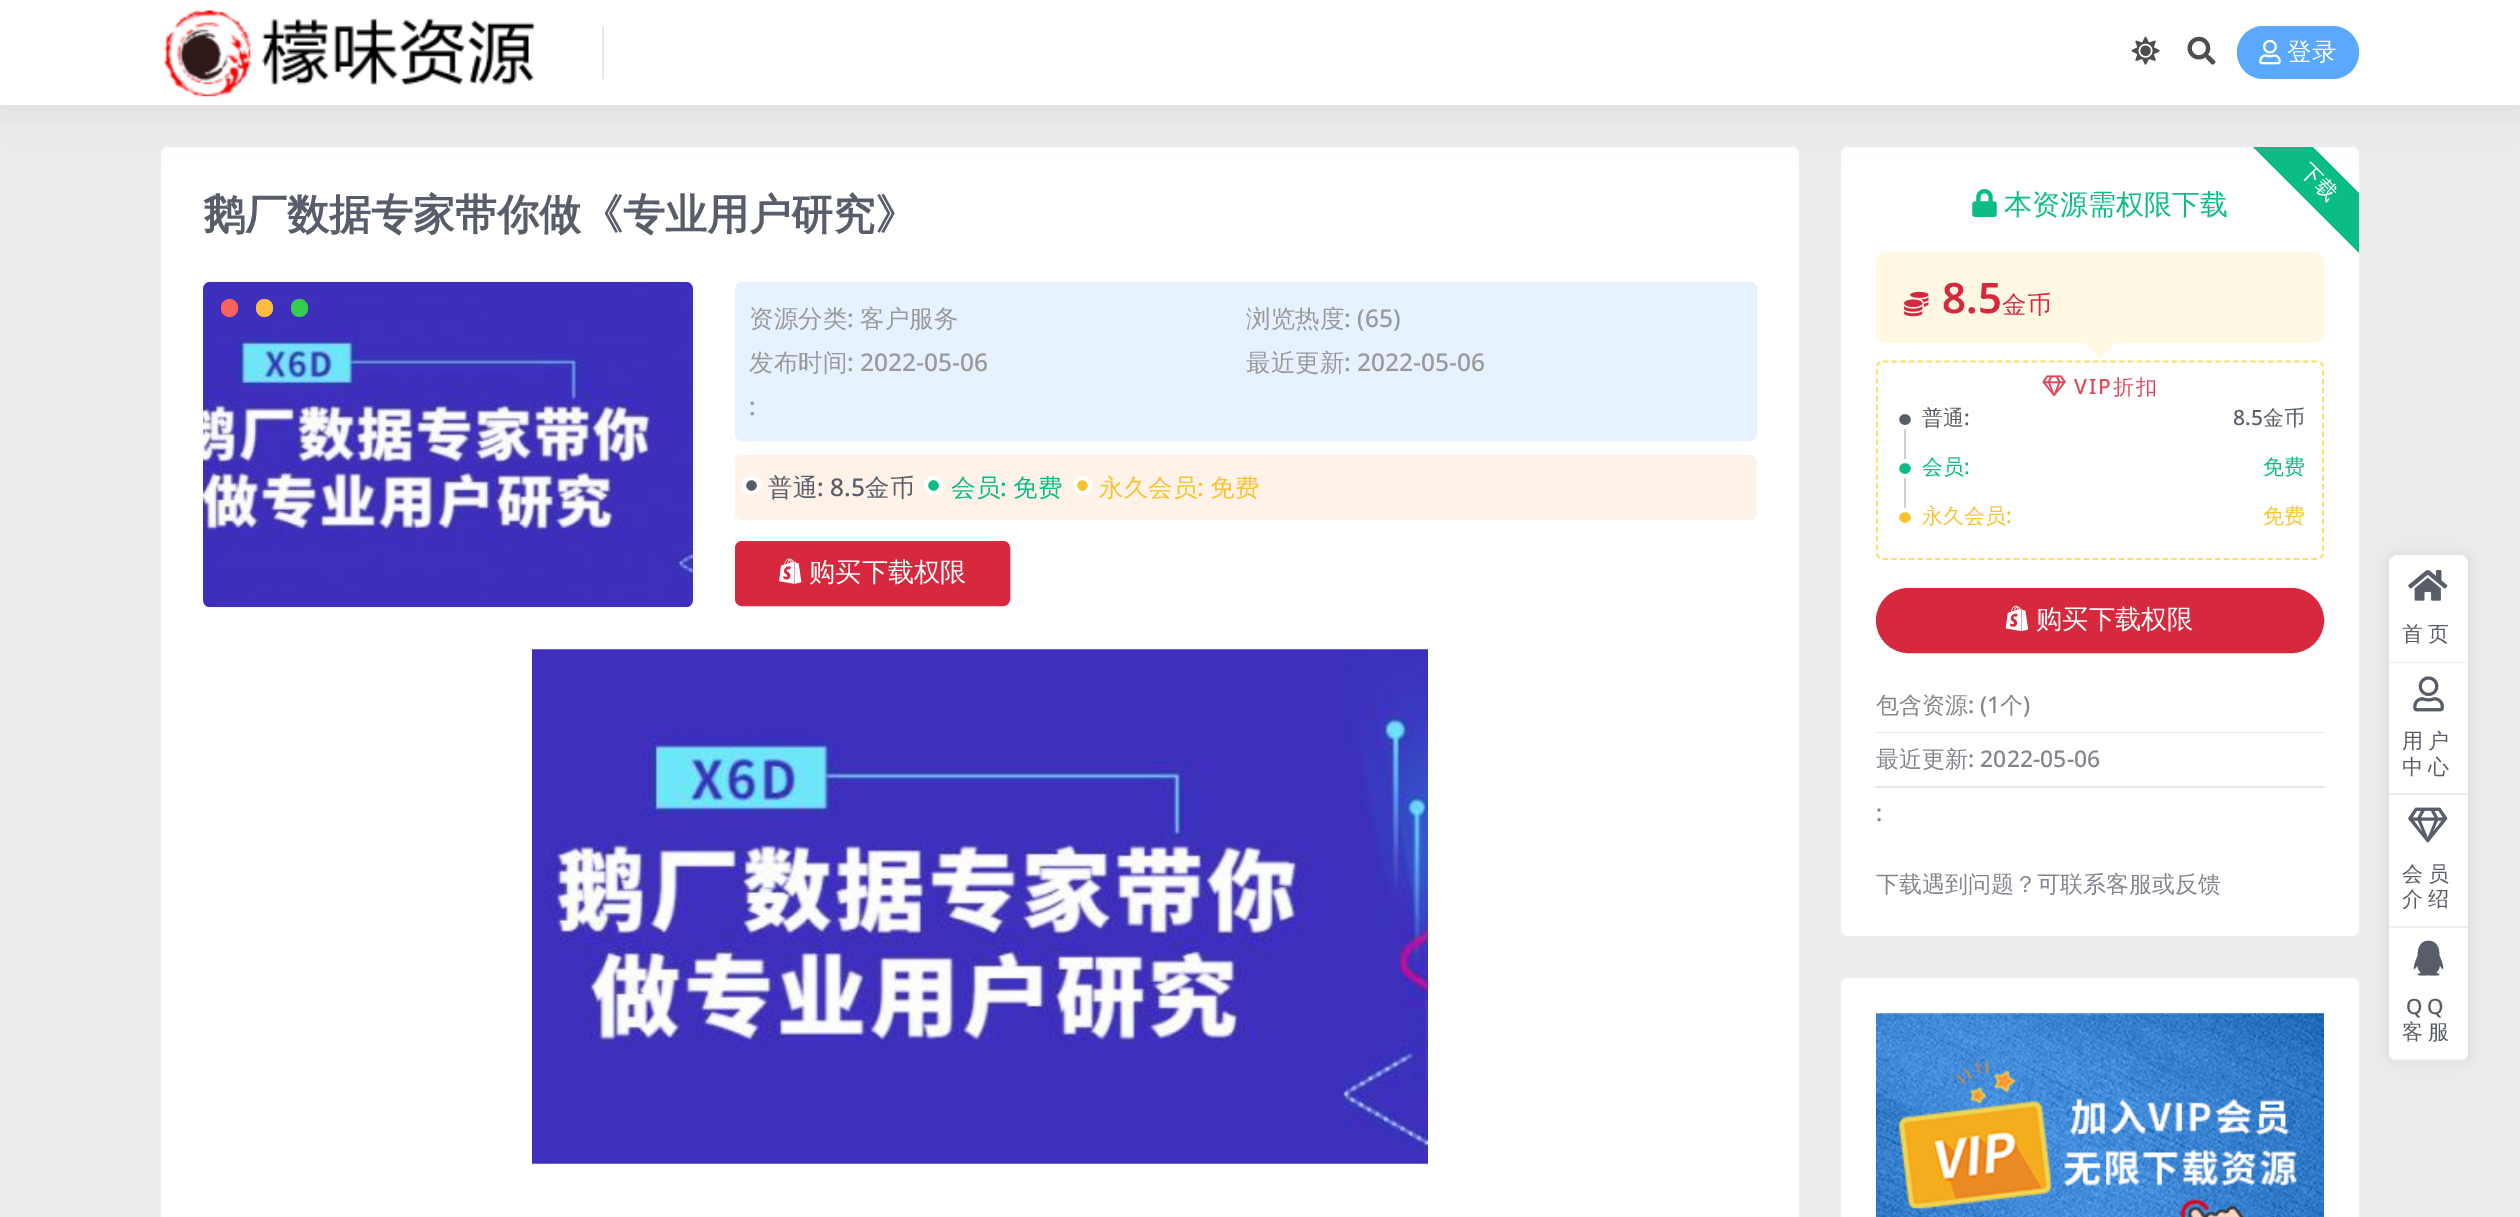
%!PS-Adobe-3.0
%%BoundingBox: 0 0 2520 1217
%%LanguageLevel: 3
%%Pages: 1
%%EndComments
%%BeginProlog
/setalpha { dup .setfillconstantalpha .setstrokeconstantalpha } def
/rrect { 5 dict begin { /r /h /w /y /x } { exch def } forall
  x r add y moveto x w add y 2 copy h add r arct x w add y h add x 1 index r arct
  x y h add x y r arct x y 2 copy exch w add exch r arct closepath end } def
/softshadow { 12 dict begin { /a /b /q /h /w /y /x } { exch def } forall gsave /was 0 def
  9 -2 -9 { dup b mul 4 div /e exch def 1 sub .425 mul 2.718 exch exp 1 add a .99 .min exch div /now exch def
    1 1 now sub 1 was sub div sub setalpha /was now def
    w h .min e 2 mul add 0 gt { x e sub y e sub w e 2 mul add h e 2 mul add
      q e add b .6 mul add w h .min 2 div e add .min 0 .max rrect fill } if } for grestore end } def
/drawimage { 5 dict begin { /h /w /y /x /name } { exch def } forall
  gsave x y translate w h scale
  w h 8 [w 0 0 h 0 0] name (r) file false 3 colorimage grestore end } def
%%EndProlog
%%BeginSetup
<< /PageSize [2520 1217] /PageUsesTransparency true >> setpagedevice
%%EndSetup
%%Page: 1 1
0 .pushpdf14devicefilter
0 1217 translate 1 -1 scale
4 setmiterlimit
0.929 setgray
0 0 2520 1217 rectfill
1 setgray
161 147 1638 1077 7 rrect fill
1841 147 518 789 7 rrect fill
0.047 0.737 0.529 setrgbcolor
newpath 2359 193 moveto 2359 253 lineto 2253 147 lineto 2313 147 lineto closepath fill
0 setgray
0 0 2520 105 0 26 0.07 softshadow
1 setgray
0 0 2520 105 rectfill
(images/1.raw) 164 10 371 87 drawimage
0.91 0.91 0.914 setrgbcolor
602 26 2 53 rectfill
(images/2.raw) 2131 36 29 29 drawimage
(images/3.raw) 2187 36 29 29 drawimage
0.357 0.659 1 setrgbcolor
2237 26 122 53 26.5 rrect fill
(images/4.raw) 2259 39 22 26 drawimage
(images/5.raw) 203 281 490 327 drawimage
0.208 0.804 0.294 setrgbcolor
291 299 17 18 8.5 rrect fill
0.992 0.737 0.251 setrgbcolor
256 299 17 18 8.5 rrect fill
0.988 0.384 0.365 setrgbcolor
221 299 17 18 8.5 rrect fill
0.902 0.949 1 setrgbcolor
735 282 1022 159 7 rrect fill
1 0.949 0.91 setrgbcolor
735 455 1022 65 7 rrect fill
0.349 0.365 0.412 setrgbcolor
newpath 751.5 485.5 7.5 0 360 arc closepath gsave fill grestore
1 setgray
4 setlinewidth
stroke
0.047 0.737 0.529 setrgbcolor
newpath 933.5 485.5 7.5 0 360 arc closepath gsave fill grestore
1 setgray
stroke
0.969 0.765 0.18 setrgbcolor
newpath 1082.5 485.5 7.5 0 360 arc closepath gsave fill grestore
1 setgray
stroke
0.839 0.161 0.243 setrgbcolor
736 542 273 63 6 rrect gsave fill grestore
2 setlinewidth
stroke
(images/6.raw) 779 558 23 26 drawimage
(images/7.raw) 532 649 896 515 drawimage
(images/8.raw) 1972 189 25 28 drawimage
1 0.976 0.894 setrgbcolor
1876 252 448 91 11 rrect fill
(images/9.raw) 1904 291 25 26 drawimage
newpath 2082.5 341 moveto 2117.5 341 lineto 2100 359 lineto closepath fill
1 0.867 0.396 setrgbcolor
1.8 setlinewidth
[5.25 3.5] 0 setdash
newpath 1883 361.5 moveto 2317 361.5 lineto 2320.5 361.5 2323 364 2323 367.5 curveto 2323 553 lineto 2323 556.5 2320.5 559 2317 559 curveto 1883 559 lineto 1879.5 559 1877 556.5 1877 553 curveto 1877 367.5 lineto 1877 364 1879.5 361.5 1883 361.5 curveto closepath stroke
(images/10.raw) 2042 375 24 22 drawimage
0.812 setgray
1904 410 2 98 rectfill
0.349 0.365 0.412 setrgbcolor
1897 412 16 15 7.5 rrect gsave fill grestore
1 setgray
4 setlinewidth
[] 0 setdash
stroke
0.047 0.737 0.529 setrgbcolor
1897 461 16 15 7.5 rrect gsave fill grestore
1 setgray
stroke
0.969 0.765 0.18 setrgbcolor
1897 510 16 15 7.5 rrect gsave fill grestore
1 setgray
stroke
0.839 0.161 0.243 setrgbcolor
1877 589 446 63 31.5 rrect gsave fill grestore
2 setlinewidth
stroke
(images/11.raw) 2005 605 24 27 drawimage
0.902 setgray
1876 732 448 1 rectfill
1876 786 448 2 rectfill
1 setgray
1841 978 518 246 7 rrect fill
(images/12.raw) 1876 1013 448 204 drawimage
0 setgray
2389 555 79 506 9 9 0.1 softshadow
1 setgray
newpath 2398 555 moveto 2459 555 lineto 2464 555 2468 559 2468 564 curveto 2468 663 lineto 2389 663 lineto 2389 564 lineto 2389 559 2393 555 2398 555 curveto closepath fill
0.933 setgray
2389 662 79 1 rectfill
(images/13.raw) 2408 570 40 31 drawimage
1 setgray
2389 663 79 130 rectfill
0.933 setgray
2389 793 79 2 rectfill
(images/14.raw) 2413 676 31 36 drawimage
1 setgray
2389 795 79 131 rectfill
0.933 setgray
2389 926 79 2 rectfill
(images/15.raw) 2408 807 40 36 drawimage
1 setgray
newpath 2389 928 moveto 2468 928 lineto 2468 1052 lineto 2468 1057 2464 1061 2459 1061 curveto 2398 1061 lineto 2393 1061 2389 1057 2389 1052 curveto closepath fill
gsave
2389 555 79 506 9 rrect clip newpath
0.933 setgray
2389 1059 79 2 rectfill
grestore
(images/16.raw) 2413 940 31 36 drawimage
/WenQuanYiZenHei-Medium [24.5 0 0 -24.5 0 0] selectfont
2287 60 moveto (登录) show
/WenQuanYiZenHei-Bold [42 0 0 -42 0 0] selectfont
0.349 0.365 0.412 setrgbcolor
203 229 moveto (鹅厂数据专家带你做《专业用户研究》) show
/WenQuanYiZenHei-Medium [24.5 0 0 -24.5 0 0] selectfont
0.6 setgray
749 327 moveto (资源分类) show
/NotoSans-Medium [24.5 0 0 -24.5 0 0] selectfont
847 327 moveto (:) show
/WenQuanYiZenHei-Medium [24.5 0 0 -24.5 0 0] selectfont
860 327 moveto (客户服务) show
1246 327 moveto (浏览热度) show
/NotoSans-Medium [24.5 0 0 -24.5 0 0] selectfont
1344 327 moveto (: \(65\)) show
/WenQuanYiZenHei-Medium [24.5 0 0 -24.5 0 0] selectfont
749 371 moveto (发布时间) show
/NotoSans-Medium [24.5 0 0 -24.5 0 0] selectfont
847 371 moveto (: 2022-05-06) show
/WenQuanYiZenHei-Medium [24.5 0 0 -24.5 0 0] selectfont
1246 371 moveto (最近更新) show
/NotoSans-Medium [24.5 0 0 -24.5 0 0] selectfont
1344 371 moveto (: 2022-05-06) show
749 415 moveto (:) show
/WenQuanYiZenHei-Medium [24.5 0 0 -24.5 0 0] selectfont
0.349 0.365 0.412 setrgbcolor
768 496 moveto (普通) show
/NotoSans-Medium [24.5 0 0 -24.5 0 0] selectfont
817 496 moveto (: 8.5) show
/WenQuanYiZenHei-Medium [24.5 0 0 -24.5 0 0] selectfont
865 496 moveto (金币) show
0.047 0.737 0.529 setrgbcolor
951 496 moveto (会员) show
/NotoSans-Medium [24.5 0 0 -24.5 0 0] selectfont
1000 496 moveto (:) show
/WenQuanYiZenHei-Medium [24.5 0 0 -24.5 0 0] selectfont
1013 496 moveto (免费) show
0.969 0.765 0.18 setrgbcolor
1099 496 moveto (永久会员) show
/NotoSans-Medium [24.5 0 0 -24.5 0 0] selectfont
1197 496 moveto (:) show
/WenQuanYiZenHei-Medium [24.5 0 0 -24.5 0 0] selectfont
1210 496 moveto (免费) show
/WenQuanYiZenHei-Medium [26.25 0 0 -26.25 0 0] selectfont
1 setgray
809 581 moveto (购买下载权限) show
/WenQuanYiZenHei-Medium [21 0 0 -21 0 0] selectfont
gsave 2299 172 translate 45 rotate 0 0 moveto (下载) show grestore
/WenQuanYiZenHei-Medium [28 0 0 -28 0 0] selectfont
0.047 0.737 0.529 setrgbcolor
2004 214 moveto (本资源需权限下载) show
/NotoSans-SemiBold [42 0 0 -42 0 0] selectfont
0.839 0.161 0.243 setrgbcolor
1942 313 moveto (8.5) show
/WenQuanYiZenHei-Medium [24.5 0 0 -24.5 0 0] selectfont
2002 313 moveto (金币) show
/NotoSans-Medium [21 0 0 -21 0 0] selectfont
0.863 0.286 0.357 setrgbcolor
2074 394 moveto 2 0 (VIP) ashow
/WenQuanYiZenHei-Medium [21 0 0 -21 0 0] selectfont
2113 394 moveto 2 0 (折扣) ashow
0.349 0.365 0.412 setrgbcolor
1922 425 moveto (普通) show
/NotoSans-Medium [21 0 0 -21 0 0] selectfont
2233 425 moveto (8.5) show
/WenQuanYiZenHei-Medium [21 0 0 -21 0 0] selectfont
2263 425 moveto (金币) show
/NotoSans-Medium [21 0 0 -21 0 0] selectfont
1964 425 moveto (:) show
/WenQuanYiZenHei-Medium [21 0 0 -21 0 0] selectfont
0.047 0.737 0.529 setrgbcolor
1922 474 moveto (会员) show
/NotoSans-Medium [21 0 0 -21 0 0] selectfont
1964 474 moveto (:) show
/WenQuanYiZenHei-Medium [21 0 0 -21 0 0] selectfont
2263 474 moveto (免费) show
0.969 0.765 0.18 setrgbcolor
1922 523 moveto (永久会员) show
/NotoSans-Medium [21 0 0 -21 0 0] selectfont
2006 523 moveto (:) show
/WenQuanYiZenHei-Medium [21 0 0 -21 0 0] selectfont
2263 523 moveto (免费) show
/WenQuanYiZenHei-Medium [26.25 0 0 -26.25 0 0] selectfont
1 setgray
2036 628 moveto (购买下载权限) show
/WenQuanYiZenHei-Medium [23 0 0 -23 0 0] selectfont
0.514 0.525 0.561 setrgbcolor
1876 713 moveto (包含资源) show
/NotoSans-Medium [23 0 0 -23 0 0] selectfont
1968 713 moveto (: \(1) show
/WenQuanYiZenHei-Medium [23 0 0 -23 0 0] selectfont
2000 713 moveto (个) show
/NotoSans-Medium [23 0 0 -23 0 0] selectfont
2023 713 moveto (\)) show
/WenQuanYiZenHei-Medium [23 0 0 -23 0 0] selectfont
1876 767 moveto (最近更新) show
/NotoSans-Medium [23 0 0 -23 0 0] selectfont
1968 767 moveto (: 2022-05-06) show
1876 821 moveto (:) show
/WenQuanYiZenHei-Medium [23 0 0 -23 0 0] selectfont
1876 892 moveto (下载遇到问题？可联系客服或反馈) show
/WenQuanYiZenHei-Medium [21 0 0 -21 0 0] selectfont
0.349 0.365 0.412 setrgbcolor
2402 641 moveto 5 0 (首页) ashow
2402 748 moveto 5 0 (用户) ashow
2402 774 moveto 5 0 (中心) ashow
2402 881 moveto 5 0 (会员) ashow
2402 906 moveto 5 0 (介绍) ashow
/NotoSans-Medium [21 0 0 -21 0 0] selectfont
2406 1014 moveto 5 0 (QQ) ashow
/WenQuanYiZenHei-Medium [21 0 0 -21 0 0] selectfont
2402 1039 moveto 5 0 (客服) ashow
.poppdf14devicefilter showpage
%%EOF
